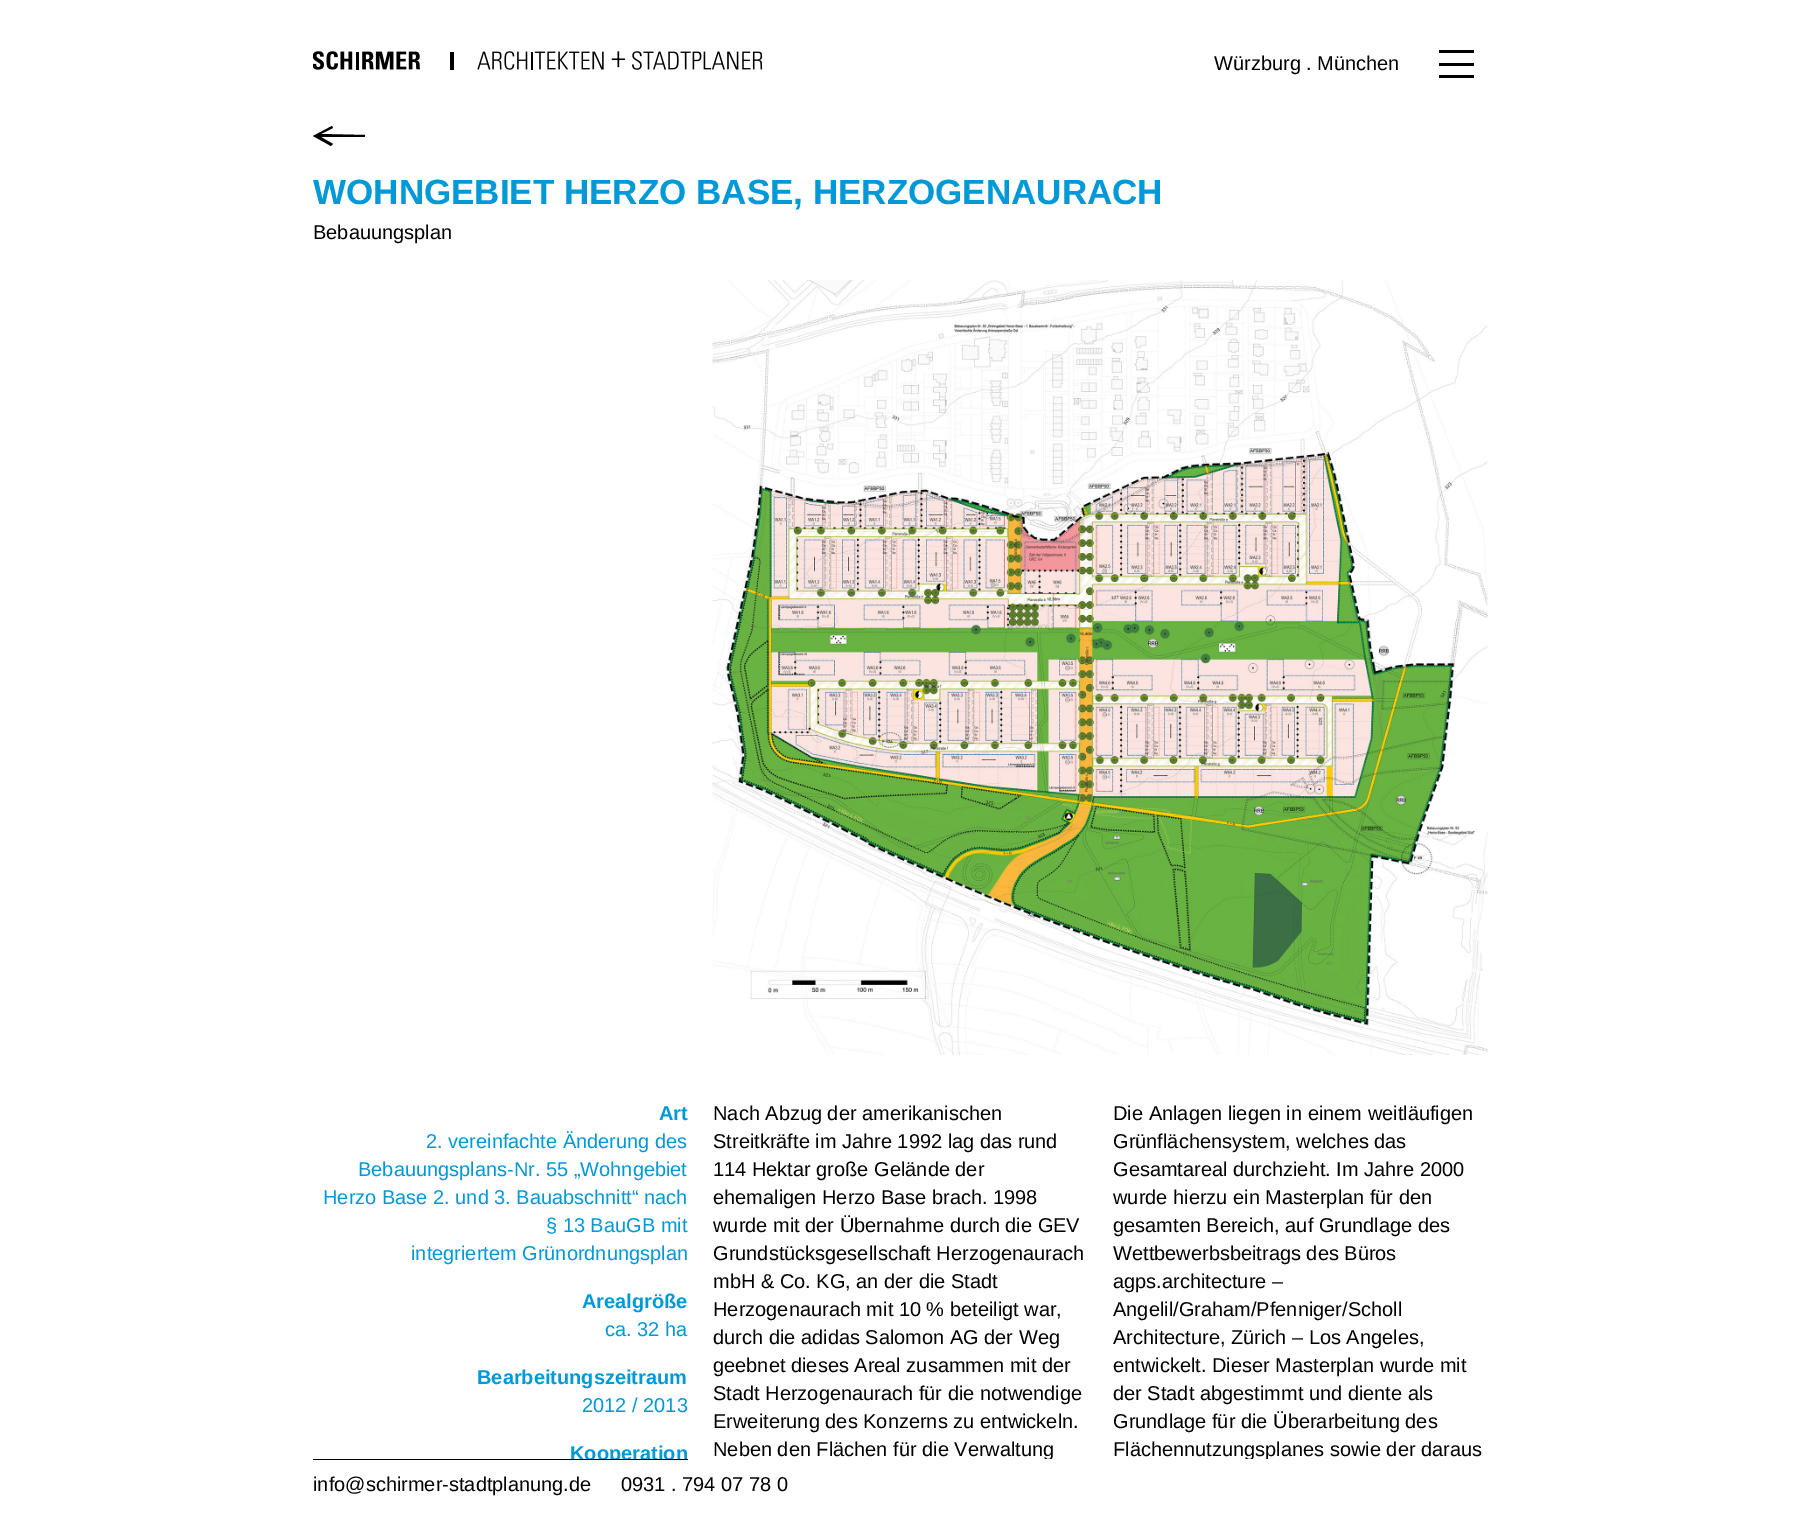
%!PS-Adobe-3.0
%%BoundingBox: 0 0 1799 1523
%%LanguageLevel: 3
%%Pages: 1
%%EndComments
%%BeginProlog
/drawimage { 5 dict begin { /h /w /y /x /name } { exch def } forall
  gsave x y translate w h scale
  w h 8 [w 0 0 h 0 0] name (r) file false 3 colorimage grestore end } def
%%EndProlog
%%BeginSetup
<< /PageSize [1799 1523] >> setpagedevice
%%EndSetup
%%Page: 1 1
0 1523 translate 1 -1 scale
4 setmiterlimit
1 setgray
0 0 1799 1523 rectfill
(images/1.raw) 313 51 450 19 drawimage
0 setgray
1439 50 35 3 rectfill
1439 63 35 3 rectfill
1439 75 35 3 rectfill
newpath 332 126 moveto 333 128 lineto 321 134 lineto 365 135 lineto 365 137 lineto 321 137 lineto 333 144 lineto 331 146 lineto 313 136 lineto closepath fill
(images/2.raw) 712 280 776 775 drawimage
/LiberationSans-Regular [20 0 0 -20 0 0] selectfont
1214 70 moveto (Würzburg . München) show
/LiberationSans-Bold [35 0 0 -35 0 0] selectfont
0 0.6 0.847 setrgbcolor
313 204 moveto (WOHNGEBIET HERZO BASE, HERZOGENAURACH) show
/LiberationSans-Regular [20 0 0 -20 0 0] selectfont
0 setgray
313 239 moveto (Bebauungsplan) show
/LiberationSans-Bold [20 0 0 -20 0 0] selectfont
0 0.6 0.847 setrgbcolor
659 1120 moveto (Art) show
/LiberationSans-Regular [20 0 0 -20 0 0] selectfont
426 1148 moveto (2. vereinfachte Änderung des) show
358 1176 moveto (Bebauungsplans-Nr. 55 „Wohngebiet) show
323 1204 moveto (Herzo Base 2. und 3. Bauabschnitt“ nach) show
546 1232 moveto (§ 13 BauGB mit) show
411 1260 moveto (integriertem Grünordnungsplan) show
/LiberationSans-Bold [20 0 0 -20 0 0] selectfont
582 1308 moveto (Arealgröße) show
/LiberationSans-Regular [20 0 0 -20 0 0] selectfont
605 1336 moveto (ca. 32 ha) show
/LiberationSans-Bold [20 0 0 -20 0 0] selectfont
477 1384 moveto (Bearbeitungszeitraum) show
/LiberationSans-Regular [20 0 0 -20 0 0] selectfont
582 1412 moveto (2012 / 2013) show
/LiberationSans-Bold [20 0 0 -20 0 0] selectfont
570 1460 moveto (Kooperation) show
/LiberationSans-Regular [20 0 0 -20 0 0] selectfont
0 setgray
713 1120 moveto (Nach Abzug der amerikanischen) show
713 1148 moveto (Streitkräfte im Jahre 1992 lag das rund) show
713 1176 moveto (114 Hektar große Gelände der) show
713 1204 moveto (ehemaligen Herzo Base brach. 1998) show
713 1232 moveto (wurde mit der Übernahme durch die GEV) show
713 1260 moveto (Grundstücksgesellschaft Herzogenaurach) show
713 1288 moveto (mbH & Co. KG, an der die Stadt) show
713 1316 moveto (Herzogenaurach mit 10 % beteiligt war,) show
713 1344 moveto (durch die adidas Salomon AG der Weg) show
713 1372 moveto (geebnet dieses Areal zusammen mit der) show
713 1400 moveto (Stadt Herzogenaurach für die notwendige) show
713 1428 moveto (Erweiterung des Konzerns zu entwickeln.) show
713 1456 moveto (Neben den Flächen für die Verwaltung) show
1113 1120 moveto (Die Anlagen liegen in einem weitläufigen) show
1113 1148 moveto (Grünflächensystem, welches das) show
1113 1176 moveto (Gesamtareal durchzieht. Im Jahre 2000) show
1113 1204 moveto (wurde hierzu ein Masterplan für den) show
1113 1232 moveto (gesamten Bereich, auf Grundlage des) show
1113 1260 moveto (Wettbewerbsbeitrags des Büros) show
1113 1288 moveto (agps.architecture –) show
1113 1316 moveto (Angelil/Graham/Pfenniger/Scholl) show
1113 1344 moveto (Architecture, Zürich – Los Angeles,) show
1113 1372 moveto (entwickelt. Dieser Masterplan wurde mit) show
1113 1400 moveto (der Stadt abgestimmt und diente als) show
1113 1428 moveto (Grundlage für die Überarbeitung des) show
1113 1456 moveto (Flächennutzungsplanes sowie der daraus) show
1 setgray
571 1459 697 6 rectfill
0 setgray
313 1459 375 1 rectfill
313 1491 moveto (info@schirmer-stadtplanung.de) show
621 1491 moveto (0931 . 794 07 78 0) show
showpage
%%EOF
